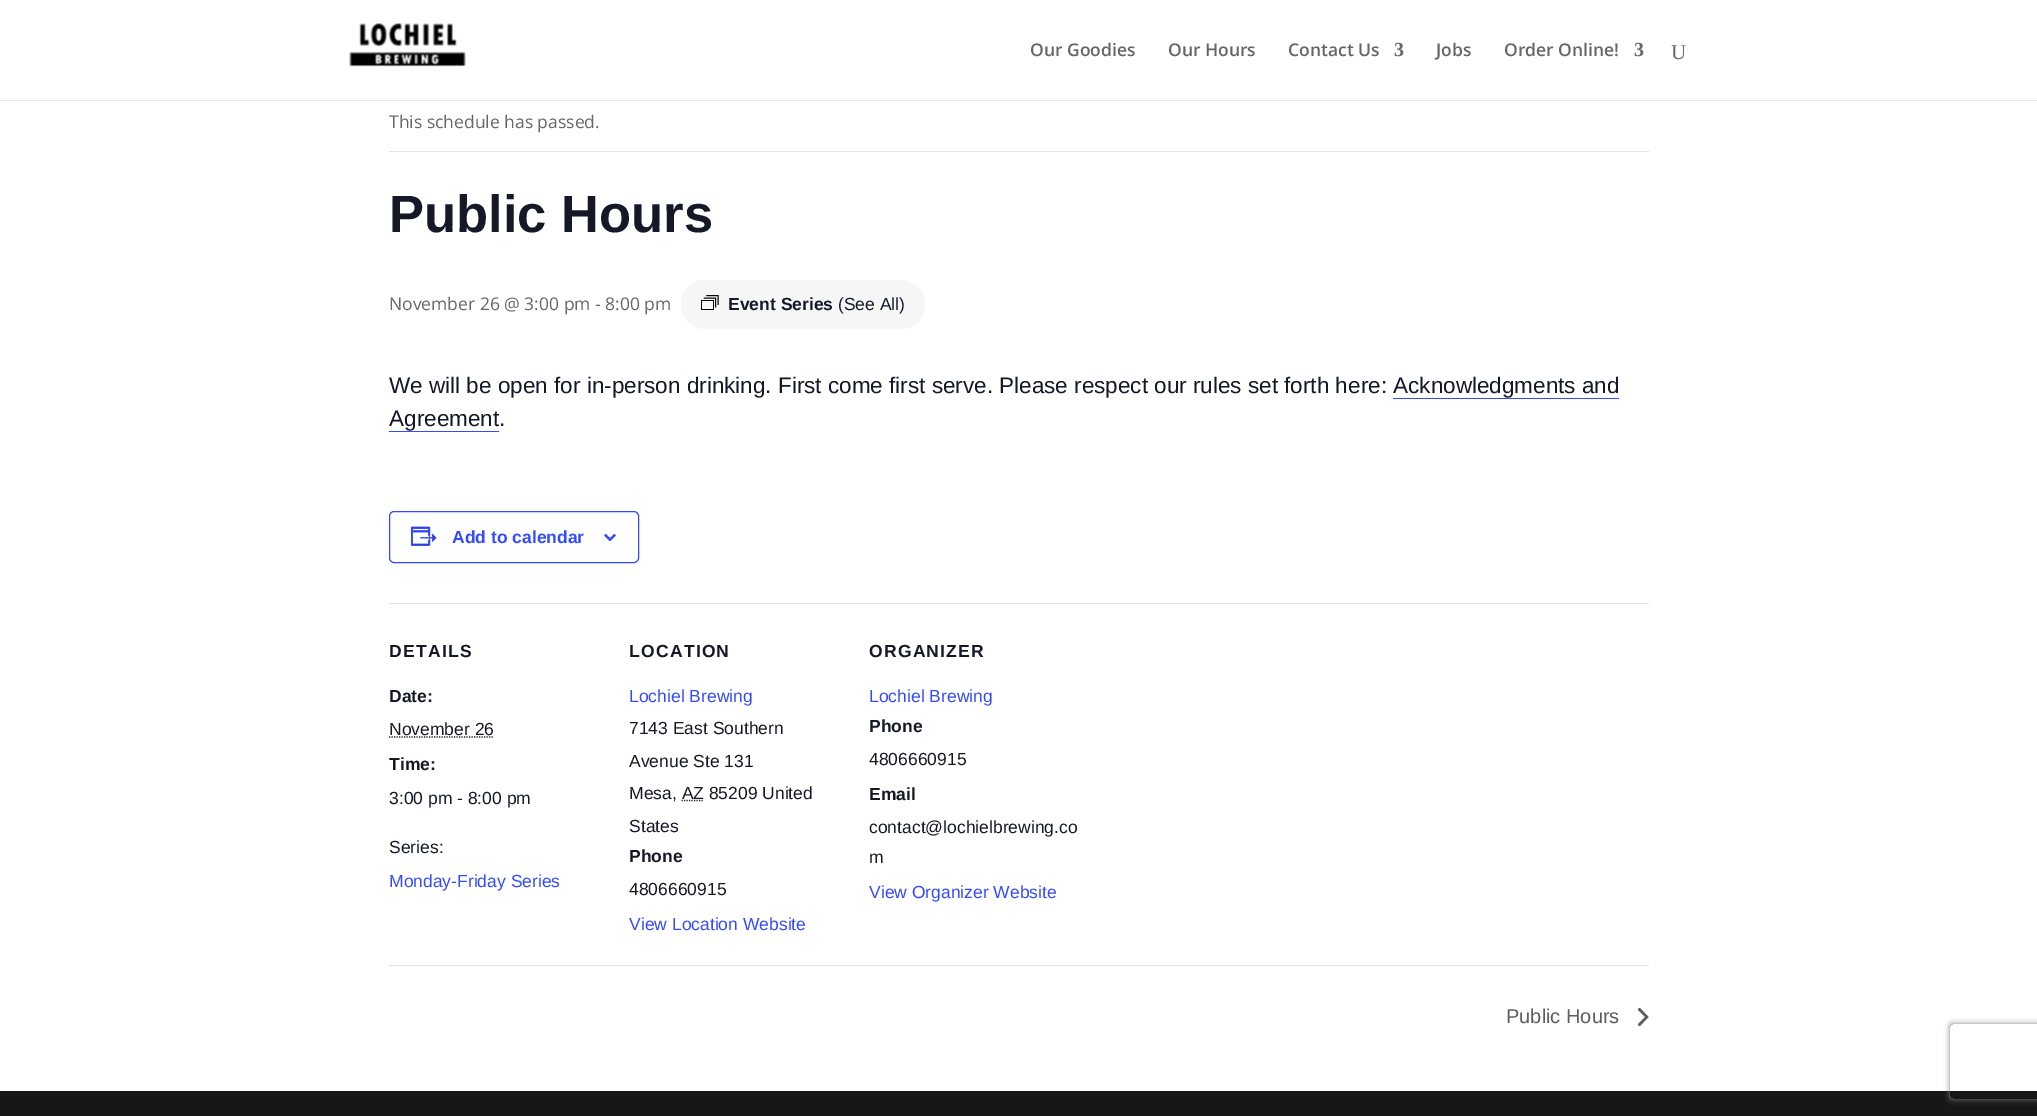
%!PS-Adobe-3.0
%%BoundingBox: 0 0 2037 1116
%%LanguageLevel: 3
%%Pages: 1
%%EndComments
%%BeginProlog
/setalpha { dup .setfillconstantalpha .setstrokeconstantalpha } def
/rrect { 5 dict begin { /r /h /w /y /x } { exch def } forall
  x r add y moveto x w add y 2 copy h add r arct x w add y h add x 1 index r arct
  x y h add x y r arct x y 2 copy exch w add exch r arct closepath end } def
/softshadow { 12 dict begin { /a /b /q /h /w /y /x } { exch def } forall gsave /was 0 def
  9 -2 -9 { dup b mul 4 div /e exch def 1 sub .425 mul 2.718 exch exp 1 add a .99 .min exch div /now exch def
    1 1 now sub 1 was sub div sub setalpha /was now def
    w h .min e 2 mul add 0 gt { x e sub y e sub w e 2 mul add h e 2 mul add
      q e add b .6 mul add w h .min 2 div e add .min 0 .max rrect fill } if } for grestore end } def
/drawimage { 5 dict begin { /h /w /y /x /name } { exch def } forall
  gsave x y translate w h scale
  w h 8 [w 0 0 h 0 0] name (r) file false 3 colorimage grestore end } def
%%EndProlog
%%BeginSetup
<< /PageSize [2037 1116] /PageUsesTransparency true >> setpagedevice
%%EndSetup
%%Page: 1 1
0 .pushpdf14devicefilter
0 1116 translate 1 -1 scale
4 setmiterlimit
1 setgray
0 0 2037 1116 rectfill
0.902 setgray
newpath 0 100 moveto 0 101 lineto 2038 101 lineto 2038 1 lineto 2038 100 lineto closepath fill
(images/1.raw) 349 23 117 44 drawimage
0.894 setgray
389 151 1260 1 rectfill
0.969 0.965 0.965 setrgbcolor
681 280 244 49 24 rrect fill
(images/2.raw) 701 295 18 15 drawimage
0.2 0.29 1 setrgbcolor
1393 398 226 1 rectfill
389 431 110 1 rectfill
389.5 511.5 249 51 4.5 rrect stroke
(images/3.raw) 411 526 26 20 drawimage
(images/4.raw) 604 534 12 7 drawimage
0.894 setgray
389 603 1260 1 rectfill
0.078 0.094 0.153 setrgbcolor
1.2 setlinewidth
[1.25 1.25] 0 setdash
newpath 389 737 moveto 494 737 lineto stroke
newpath 681.5 800.5 moveto 703.5 800.5 lineto stroke
0.894 setgray
389 965 1260 1 rectfill
gsave
1638 1008 11 18 rectclip
0.365 setgray
newpath 1637.5 1009.5 moveto 1639.5 1007.5 lineto 1648.5 1017 lineto 1639.5 1026.5 lineto 1637.5 1024.5 lineto 1645 1017 lineto closepath fill
grestore
0.09 setgray
0 1091 2037 25 rectfill
gsave
newpath 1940 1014 moveto 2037 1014 lineto 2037 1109 lineto 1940 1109 lineto closepath 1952.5 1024 moveto 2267.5 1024 lineto 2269 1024 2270 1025 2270 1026.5 curveto 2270 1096.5 lineto 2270 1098 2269 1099 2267.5 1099 curveto 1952.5 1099 lineto 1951 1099 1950 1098 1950 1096.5 curveto 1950 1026.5 lineto 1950 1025 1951 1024 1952.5 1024 curveto closepath eoclip newpath
0.502 setgray
1950 1024 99 75 2.5 3 1 softshadow
grestore
/OpenSans-SemiBold [17.5 0 0 -17.5 0 0] selectfont
0.4 setgray
1030 56 moveto (Our Goodies) show
1168 56 moveto (Our Hours) show
1288 56 moveto (Contact Us) show
/LiberationSerif-Bold [20 0 0 -20 0 0] selectfont
1394 56 moveto (3) show
/OpenSans-SemiBold [17.5 0 0 -17.5 0 0] selectfont
1436 56 moveto (Jobs) show
1504 56 moveto (Order Online!) show
/LiberationSerif-Bold [20 0 0 -20 0 0] selectfont
1634 56 moveto (3) show
/LiberationSerif-Regular [21 0 0 -21 0 0] selectfont
1671 59 moveto (U) show
/OpenSans-Regular [17.5 0 0 -17.5 0 0] selectfont
389 128 moveto (This schedule has passed.) show
/LiberationSans-Bold [52.5 0 0 -52.5 0 0] selectfont
0.078 0.094 0.153 setrgbcolor
389 232 moveto (Public Hours) show
/OpenSans-Regular [17.5 0 0 -17.5 0 0] selectfont
0.4 setgray
389 310 moveto (November 26 @ 3:00 pm - 8:00 pm) show
/LiberationSans-Bold [17.5 0 0 -17.5 0 0] selectfont
0.078 0.094 0.153 setrgbcolor
728 310 moveto (Event Series) show
/LiberationSans-Regular [17.5 0 0 -17.5 0 0] selectfont
838 310 moveto (\(See All\)) show
/LiberationSans-Regular [22.5 0 0 -22.5 0 0] selectfont
389 393 moveto (We will be open for in-person drinking. First come first serve. Please respect our rules set forth here: Acknowledgments and) show
389 426 moveto (Agreement.) show
/LiberationSans-Bold [17.5 0 0 -17.5 0 0] selectfont
0.2 0.29 1 setrgbcolor
452 543 moveto (Add to calendar) show
0.078 0.094 0.153 setrgbcolor
389 657 moveto 1.25 0 (DETAILS) ashow
389 702 moveto (Date:) show
/LiberationSans-Regular [17.5 0 0 -17.5 0 0] selectfont
389 735 moveto (November 26) show
/LiberationSans-Bold [17.5 0 0 -17.5 0 0] selectfont
389 770 moveto (Time:) show
/LiberationSans-Regular [17.5 0 0 -17.5 0 0] selectfont
389 804 moveto (3:00 pm - 8:00 pm) show
389 853 moveto (Series:) show
0.2 0.29 1 setrgbcolor
389 887 moveto (Monday-Friday Series) show
/LiberationSans-Bold [17.5 0 0 -17.5 0 0] selectfont
0.078 0.094 0.153 setrgbcolor
629 657 moveto 1.25 0 (LOCATION) ashow
/LiberationSans-Regular [17.5 0 0 -17.5 0 0] selectfont
0.2 0.29 1 setrgbcolor
629 702 moveto (Lochiel Brewing) show
0.078 0.094 0.153 setrgbcolor
629 734 moveto (7143 East Southern) show
629 767 moveto (Avenue Ste 131) show
629 799 moveto (Mesa, AZ 85209 United) show
629 832 moveto (States) show
/LiberationSans-Bold [17.5 0 0 -17.5 0 0] selectfont
629 862 moveto (Phone) show
/LiberationSans-Regular [17.5 0 0 -17.5 0 0] selectfont
629 895 moveto (4806660915) show
0.2 0.29 1 setrgbcolor
629 930 moveto (View Location Website) show
/LiberationSans-Bold [17.5 0 0 -17.5 0 0] selectfont
0.078 0.094 0.153 setrgbcolor
869 657 moveto 1.25 0 (ORGANIZER) ashow
/LiberationSans-Regular [17.5 0 0 -17.5 0 0] selectfont
0.2 0.29 1 setrgbcolor
869 702 moveto (Lochiel Brewing) show
/LiberationSans-Bold [17.5 0 0 -17.5 0 0] selectfont
0.078 0.094 0.153 setrgbcolor
869 732 moveto (Phone) show
/LiberationSans-Regular [17.5 0 0 -17.5 0 0] selectfont
869 765 moveto (4806660915) show
/LiberationSans-Bold [17.5 0 0 -17.5 0 0] selectfont
869 800 moveto (Email) show
/LiberationSans-Regular [17.5 0 0 -17.5 0 0] selectfont
869 833 moveto (contact@lochielbrewing.co) show
869 863 moveto (m) show
0.2 0.29 1 setrgbcolor
869 898 moveto (View Organizer Website) show
/LiberationSans-Regular [20 0 0 -20 0 0] selectfont
0.365 setgray
1506 1023 moveto (Public Hours) show
.poppdf14devicefilter showpage
%%EOF
